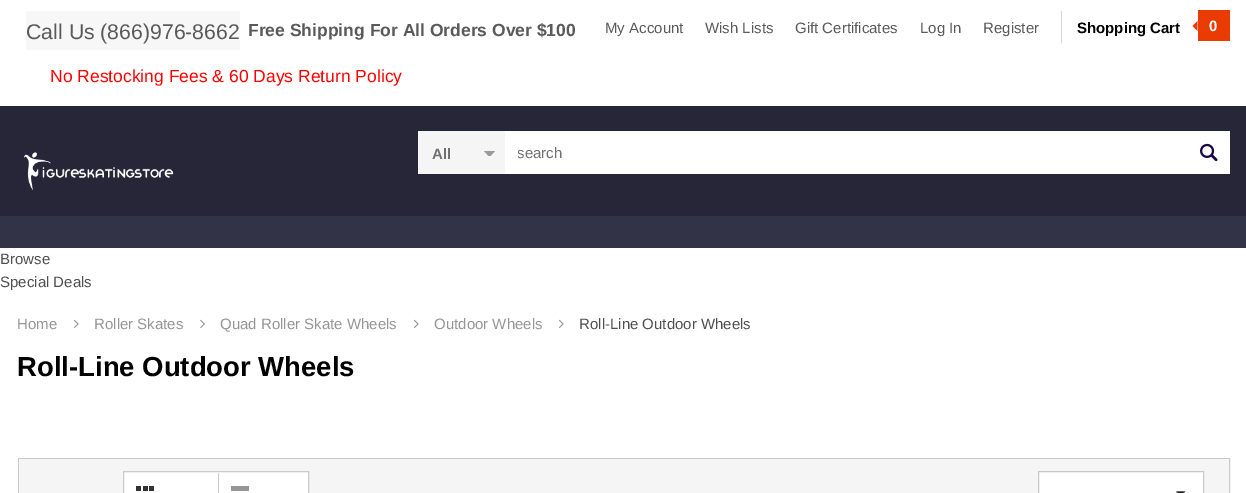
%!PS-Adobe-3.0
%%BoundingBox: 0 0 1246 493
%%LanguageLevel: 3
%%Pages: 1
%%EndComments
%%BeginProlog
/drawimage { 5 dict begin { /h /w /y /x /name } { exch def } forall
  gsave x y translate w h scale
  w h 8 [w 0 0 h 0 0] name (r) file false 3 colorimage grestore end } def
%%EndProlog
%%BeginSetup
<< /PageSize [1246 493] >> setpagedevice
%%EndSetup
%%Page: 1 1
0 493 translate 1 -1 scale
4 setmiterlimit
1 setgray
0 0 1246 493 rectfill
0.149 0.149 0.22 setrgbcolor
0 106 1246 110 rectfill
0.969 setgray
26 11 214 39 rectfill
0.839 setgray
1061 11 1 32 rectfill
0.918 0.231 0.008 setrgbcolor
1198 10 32 31 rectfill
newpath 1197.5 21 moveto 1197.5 31 lineto 1192.5 26 lineto closepath fill
(images/1.raw) 24 152 150 38 drawimage
1 setgray
505 131 725 43 rectfill
0.961 setgray
418 131 87 43 rectfill
gsave
484 151 11 5 rectclip
0.604 setgray
newpath 484 151 moveto 489.5 157 lineto 495 151 lineto closepath fill
grestore
(images/2.raw) 1200 143 18 19 drawimage
0.2 0.2 0.282 setrgbcolor
0 216 1246 32 rectfill
(images/3.raw) 73 319 6 9 drawimage
(images/4.raw) 200 319 5 9 drawimage
(images/3.raw) 413 319 6 9 drawimage
(images/3.raw) 558 319 6 9 drawimage
0.792 setgray
18.5 458.5 1211 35 rectstroke
0.961 setgray
19 459 1210 34 rectfill
1 setgray
newpath 123.5 471.5 moveto 308.5 471.5 lineto 308.5 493.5 lineto 123.5 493.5 lineto closepath gsave fill grestore
0.792 setgray
stroke
218 473 1 20 rectfill
0.196 setgray
143 486 5 5 rectfill
136 486 5 5 rectfill
149 486 5 5 rectfill
0.588 setgray
231 486 18 5 rectfill
1 setgray
1039 472 164 21 rectfill
(images/5.raw) 1176 491 10 2 drawimage
0.784 setgray
1038.5 471.5 165 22 rectstroke
/Arimo-Regular [21.25 0 0 -21.25 0 0] selectfont
0.353 setgray
26 39 moveto (Call Us \(866\)976-8662) show
/Arimo-Bold [17.5 0 0 -17.5 0 0] selectfont
248 36 moveto (Free Shipping For All Orders Over $100) show
/Arimo-Regular [15 0 0 -15 0 0] selectfont
605 33 moveto (My Account) show
705 33 moveto (Wish Lists) show
795 33 moveto (Gift Certificates) show
920 33 moveto (Log In) show
983 33 moveto (Register) show
/Arimo-Bold [15 0 0 -15 0 0] selectfont
0 setgray
1077 33 moveto (Shopping Cart) show
1 setgray
1209 31 moveto (0) show
/Arimo-Regular [17.5 0 0 -17.5 0 0] selectfont
1 0 0 setrgbcolor
50 82 moveto (No Restocking Fees & 60 Days Return Policy) show
/Arimo-Bold [15 0 0 -15 0 0] selectfont
0.443 setgray
432 159 moveto (All) show
gsave
518 144 662 17 rectclip
/Arimo-Regular [15 0 0 -15 0 0] selectfont
517 158 moveto (search) show
grestore
/Arimo-Regular [15 0 0 -15 0 0] selectfont
0.314 setgray
0 264 moveto (Browse) show
0 287 moveto (Special Deals) show
0.588 setgray
17 329 moveto (Home) show
94 329 moveto (Roller Skates) show
220 329 moveto (Quad Roller Skate Wheels) show
434 329 moveto (Outdoor Wheels) show
0.314 setgray
579 329 moveto (Roll-Line Outdoor Wheels) show
/Arimo-Bold [27.5 0 0 -27.5 0 0] selectfont
0 setgray
17 376 moveto (Roll-Line Outdoor Wheels) show
showpage
%%EOF
